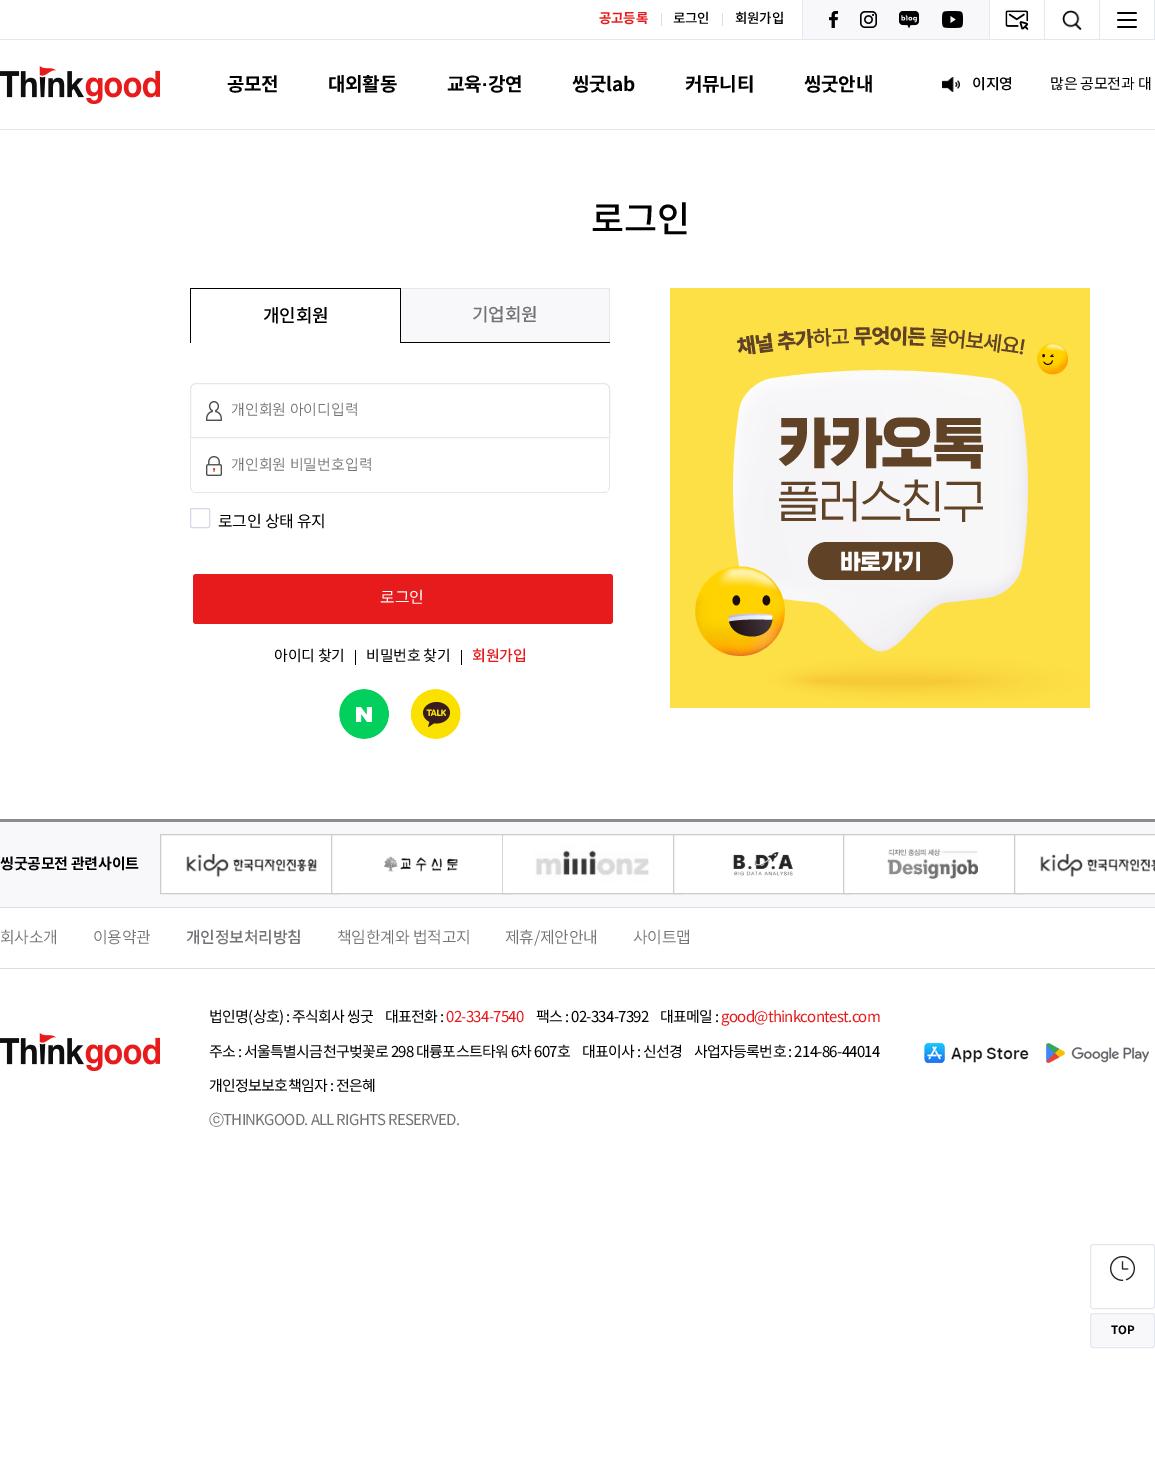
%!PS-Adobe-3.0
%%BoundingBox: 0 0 1155 1481
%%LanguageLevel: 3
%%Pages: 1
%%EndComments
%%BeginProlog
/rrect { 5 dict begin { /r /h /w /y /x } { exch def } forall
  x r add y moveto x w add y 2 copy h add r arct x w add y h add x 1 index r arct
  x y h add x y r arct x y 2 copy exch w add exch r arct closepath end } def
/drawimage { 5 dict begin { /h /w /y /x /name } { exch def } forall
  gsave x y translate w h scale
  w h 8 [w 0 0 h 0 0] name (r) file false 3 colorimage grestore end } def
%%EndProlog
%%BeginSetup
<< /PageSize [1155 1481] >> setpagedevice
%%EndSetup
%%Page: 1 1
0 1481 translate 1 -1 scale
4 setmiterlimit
1 setgray
0 0 1155 1481 rectfill
0.898 0.906 0.933 setrgbcolor
0 39 1155 1 rectfill
802 0 1 39 rectfill
0.867 setgray
661 13 1 13 rectfill
722 13 1 13 rectfill
0.973 0.973 0.98 setrgbcolor
803 0 186 39 rectfill
0.898 0.906 0.933 setrgbcolor
989 0 1 39 rectfill
(images/1.raw) 829 11 9 17 drawimage
(images/2.raw) 860 11 17 17 drawimage
(images/3.raw) 899 11 20 17 drawimage
(images/4.raw) 942 11 21 17 drawimage
1154 0 1 39 rectfill
(images/5.raw) 1005 10 24 20 drawimage
1044 0 1 39 rectfill
(images/6.raw) 1062 10 20 20 drawimage
1099 0 1 39 rectfill
(images/7.raw) 1117 12 20 16 drawimage
(images/8.raw) 0 66 160 38 drawimage
(images/9.raw) 942 77 18 15 drawimage
0 129 1155 1 rectfill
0 setgray
190 288 211 1 rectfill
190 288 1 55 rectfill
0.973 0.973 0.98 setrgbcolor
401 289 208 53 rectfill
0.898 0.906 0.933 setrgbcolor
400 288 210 1 rectfill
609 288 1 55 rectfill
0 setgray
400 342 210 1 rectfill
400 288 1 55 rectfill
(images/10.raw) 206 401 16 20 drawimage
0.898 0.906 0.933 setrgbcolor
newpath 196 383.5 moveto 604 383.5 lineto 607 383.5 609.5 386 609.5 389 curveto 609.5 437.5 lineto 190.5 437.5 lineto 190.5 389 lineto 190.5 386 193 383.5 196 383.5 curveto closepath stroke
(images/11.raw) 206 456 16 20 drawimage
newpath 610 438 moveto 609 439 lineto 609 487 lineto 609 488 608 490 608 491 curveto 609 490 610 488 610 487 curveto closepath fill
newpath 196 493 moveto 604 493 lineto 606 493 607 492 608 491 curveto 607 492 605 492 604 492 curveto 194 492 lineto 192 491 lineto 193 492 194 493 196 493 curveto closepath fill
newpath 191 439 moveto 190 438 lineto 190 487 lineto 190 488 191 490 192 491 curveto 192 490 191 488 191 487 curveto closepath fill
0.839 0.851 0.902 setrgbcolor
190.5 508.5 19 19 1.5 rrect stroke
0.906 0.106 0.106 setrgbcolor
193 574 420 50 3 rrect fill
0 setgray
355 650 1 15 rectfill
461 650 1 15 rectfill
(images/12.raw) 339 689 50 50 drawimage
(images/13.raw) 410 689 51 50 drawimage
(images/14.raw) 670 288 420 420 drawimage
0.898 0.906 0.933 setrgbcolor
1090.5 1244.5 64 64 2.5 rrect stroke
(images/15.raw) 1110 1256 25 25 drawimage
0.973 0.973 0.98 setrgbcolor
1090.5 1313.5 64 34 2.5 rrect gsave fill grestore
0.898 0.906 0.933 setrgbcolor
stroke
0.541 setgray
0 819 1155 1 rectfill
0.973 0.973 0.98 setrgbcolor
0 822 1155 85 rectfill
0.549 setgray
0 820 1155 2 rectfill
1 setgray
161 835 170 58 rectfill
0.8 setgray
160.5 834.5 179 59 rectstroke
(images/16.raw) 186 853 131 24 drawimage
1 setgray
332 835 170 58 rectfill
0.8 setgray
331.5 834.5 179 59 rectstroke
(images/17.raw) 384 856 74 16 drawimage
1 setgray
503 835 170 58 rectfill
0.8 setgray
502.5 834.5 179 59 rectstroke
(images/18.raw) 502 836 147 57 drawimage
1 setgray
674 835 169 58 rectfill
0.8 setgray
673.5 834.5 179 59 rectstroke
(images/19.raw) 732 852 61 24 drawimage
1 setgray
844 835 170 58 rectfill
0.8 setgray
843.5 834.5 179 59 rectstroke
(images/20.raw) 887 849 91 30 drawimage
1 setgray
newpath 1014.5 834.5 moveto 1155.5 834.5 lineto 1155.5 893.5 lineto 1014.5 893.5 lineto closepath gsave fill grestore
0.8 setgray
stroke
(images/21.raw) 1040 853 115 24 drawimage
0.867 setgray
0 907 1155 1 rectfill
0 968 1155 1 rectfill
(images/8.raw) 0 1033 160 38 drawimage
(images/22.raw) 924 1043 105 20 drawimage
(images/23.raw) 1046 1043 103 20 drawimage
/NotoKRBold-Bold [13.5 0 0 -13.5 0 0] selectfont
0.906 0.106 0.106 setrgbcolor
599 23 moveto -0.25 0 (공고등록) ashow
/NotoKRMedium-Medium [13.5 0 0 -13.5 0 0] selectfont
0 setgray
673 23 moveto -0.25 0 (로그인) ashow
735 23 moveto -0.25 0 (회원가입) ashow
/NotoKRBold-Bold [19 0 0 -19 0 0] selectfont
227 91 moveto -0.25 0 (공모전) ashow
328 91 moveto -0.25 0 (대외활동) ashow
447 91 moveto -0.25 0 (교육) ashow
/LiberationSans-Bold [19 0 0 -19 0 0] selectfont
482 91 moveto -0.25 0 (·) ashow
/NotoKRBold-Bold [19 0 0 -19 0 0] selectfont
488 91 moveto -0.25 0 (강연) ashow
572 91 moveto -0.25 0 (씽굿lab) ashow
685 91 moveto -0.25 0 (커뮤니티) ashow
804 91 moveto -0.25 0 (씽굿안내) ashow
gsave
972 77 70 17 rectclip
/NotoKRMedium-Medium [15 0 0 -15 0 0] selectfont
972 89 moveto -0.25 0 (이지영) ashow
grestore
gsave
1050 77 105 17 rectclip
/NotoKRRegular-Regular [15 0 0 -15 0 0] selectfont
1050 89 moveto -0.25 0 (많은 공모전과 대) ashow
grestore
/NotoKRMedium-Medium [36 0 0 -36 0 0] selectfont
591 232 moveto -0.25 0 (로그인) ashow
/NotoKRMedium-Medium [18 0 0 -18 0 0] selectfont
263 322 moveto -0.25 0 (개인회원) ashow
0.455 0.455 0.471 setrgbcolor
472 321 moveto -0.25 0 (기업회원) ashow
/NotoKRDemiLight-Light [15 0 0 -15 0 0] selectfont
231 415 moveto (개인회원 아이디입력) show
231 470 moveto (개인회원 비밀번호입력) show
/NotoKRRegular-Regular [16 0 0 -16 0 0] selectfont
0 setgray
218 527 moveto -0.25 0 (로그인 상태 유지) ashow
1 setgray
380 603 moveto (로그인) show
/NotoKRRegular-Regular [15 0 0 -15 0 0] selectfont
0 setgray
274 661 moveto -0.25 0 (아이디 찾기) ashow
366 661 moveto -0.25 0 (비밀번호 찾기) ashow
/NotoKRMedium-Medium [15 0 0 -15 0 0] selectfont
0.906 0.106 0.106 setrgbcolor
472 661 moveto -0.25 0 (회원가입) ashow
/NotoKRBold-Bold [11.5 0 0 -11.5 0 0] selectfont
0 setgray
1111 1334 moveto (TOP) show
/NotoKRBold-Bold [15 0 0 -15 0 0] selectfont
0 869 moveto -0.25 0 (씽굿공모전 관련사이트) ashow
/NotoKRDemiLight-Light [16 0 0 -16 0 0] selectfont
0.455 0.455 0.471 setrgbcolor
0 943 moveto -0.25 0 (회사소개) ashow
93 943 moveto -0.25 0 (이용약관) ashow
/NotoKRMedium-Medium [16 0 0 -16 0 0] selectfont
186 943 moveto -0.25 0 (개인정보처리방침) ashow
/NotoKRDemiLight-Light [16 0 0 -16 0 0] selectfont
337 943 moveto -0.25 0 (책임한계와 법적고지) ashow
505 943 moveto -0.25 0 (제휴/제안안내) ashow
633 943 moveto -0.25 0 (사이트맵) ashow
/NotoKRRegular-Regular [15 0 0 -15 0 0] selectfont
0 setgray
209 1022 moveto -0.7 0 (법인명\(상호\) : 주식회사 씽굿) ashow
385 1022 moveto -0.7 0 (대표전화 :) ashow
0.906 0.106 0.106 setrgbcolor
446 1022 moveto -0.7 0 (02-334-7540) ashow
0 setgray
536 1022 moveto -0.7 0 (팩스 : 02-334-7392) ashow
660 1022 moveto -0.7 0 (대표메일 :) ashow
0.906 0.106 0.106 setrgbcolor
721 1022 moveto -0.7 0 (good@thinkcontest.com) ashow
0 setgray
209 1057 moveto -0.7 0 (주소 : 서울특별시금천구벚꽃로 298 대륭포스트타워 6차 607호) ashow
582 1057 moveto -0.7 0 (대표이사 : 신선경) ashow
694 1057 moveto -0.7 0 (사업자등록번호 : 214-86-44014) ashow
209 1091 moveto -0.7 0 (개인정보보호책임자 : 전은혜) ashow
/WenQuanYiZenHei-Medium [15 0 0 -15 0 0] selectfont
0.455 0.455 0.471 setrgbcolor
209 1125 moveto -0.7 0 (ⓒ) ashow
/NotoKRRegular-Regular [15 0 0 -15 0 0] selectfont
223 1125 moveto -0.7 0 (THINKGOOD. ALL RIGHTS RESERVED.) ashow
showpage
%%EOF
